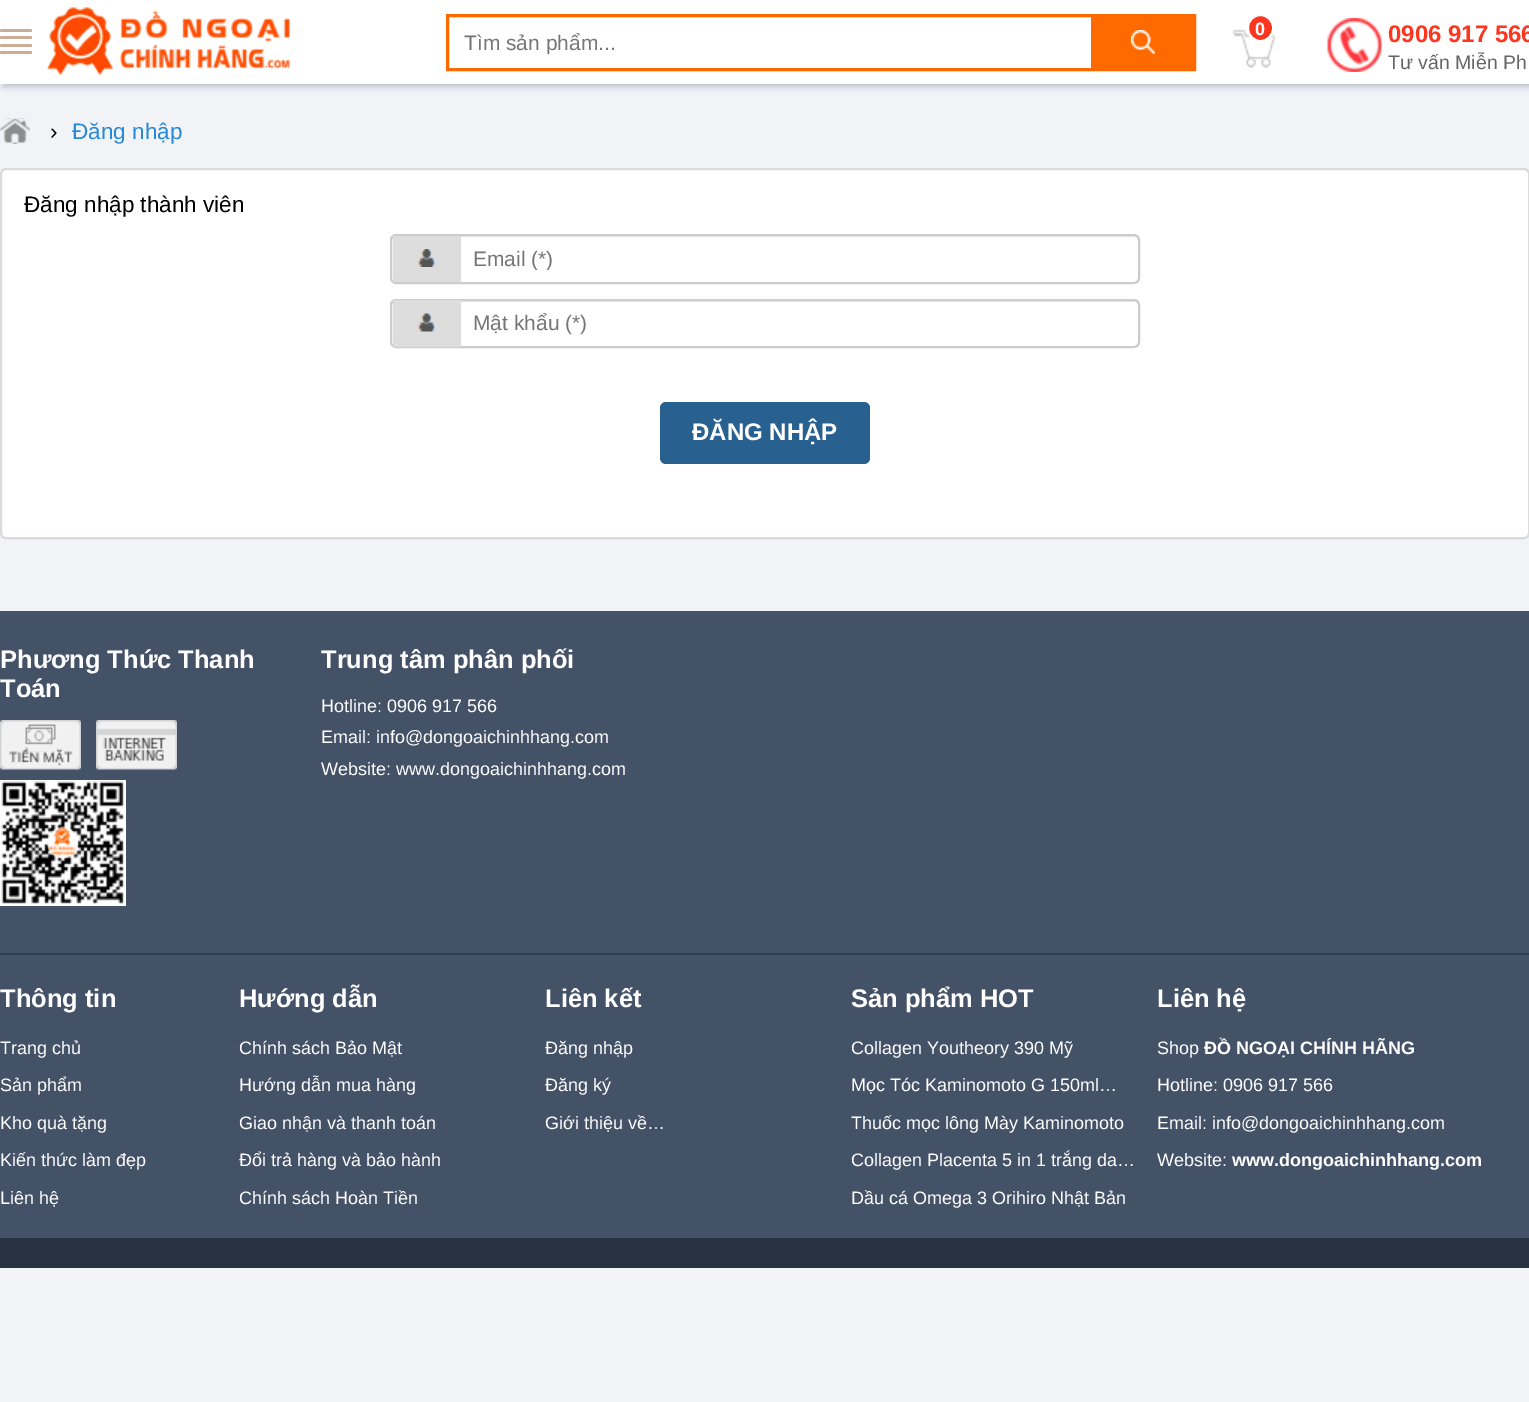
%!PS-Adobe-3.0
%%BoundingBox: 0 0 1529 1402
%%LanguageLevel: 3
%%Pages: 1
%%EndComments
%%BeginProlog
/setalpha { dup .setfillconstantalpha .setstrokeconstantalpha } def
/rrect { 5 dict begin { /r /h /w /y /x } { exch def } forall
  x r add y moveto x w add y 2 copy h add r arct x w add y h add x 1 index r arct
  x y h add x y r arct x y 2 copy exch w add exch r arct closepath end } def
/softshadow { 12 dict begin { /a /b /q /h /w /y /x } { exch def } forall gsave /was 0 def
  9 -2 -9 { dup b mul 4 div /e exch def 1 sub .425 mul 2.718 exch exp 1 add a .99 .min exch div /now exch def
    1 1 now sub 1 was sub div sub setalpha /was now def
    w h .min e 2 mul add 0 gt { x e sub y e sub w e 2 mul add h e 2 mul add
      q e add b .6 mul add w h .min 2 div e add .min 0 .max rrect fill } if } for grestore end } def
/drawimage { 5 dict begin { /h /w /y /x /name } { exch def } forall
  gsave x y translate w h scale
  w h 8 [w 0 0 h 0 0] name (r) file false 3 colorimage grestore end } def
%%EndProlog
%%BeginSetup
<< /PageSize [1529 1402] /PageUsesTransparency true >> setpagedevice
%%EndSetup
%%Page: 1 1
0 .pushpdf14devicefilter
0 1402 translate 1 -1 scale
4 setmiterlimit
0.949 0.953 0.969 setrgbcolor
0 0 1529 1402 rectfill
0.325 0.392 0.478 setrgbcolor
3 3 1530 84 0 3 0.35 softshadow
1 setgray
0 0 1529 84 rectfill
0.796 0.675 0.592 setrgbcolor
0 29 32 3 1.5 rrect fill
0 36 32 3 1.5 rrect fill
0 44 32 3 1.5 rrect fill
0 51 32 3 1.5 rrect fill
(images/1.raw) 46 7 244 68 drawimage
1 0.416 0 setrgbcolor
3 setlinewidth
447.5 15.5 747 54 rectstroke
1091 17 102 51 rectfill
(images/2.raw) 1131 30 24 24 drawimage
(images/3.raw) 1232 29 44 39 drawimage
0.992 0.212 0.125 setrgbcolor
1248 15 25 26 12.5 rrect gsave fill grestore
1 setgray
2 setlinewidth
stroke
(images/4.raw) 1327 18 55 54 drawimage
(images/5.raw) 0 118 30 26 drawimage
0 168 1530 371 6 rrect fill
0.14 setalpha
0 setgray
1 169 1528 369 5 rrect stroke
1 setalpha
0.925 setgray
newpath 396 237 moveto 1134 237 lineto 1136 237 1138 239 1138 242 curveto 1138 280 lineto 1139 279 1139 278 1139 277 curveto 1139 241 lineto 1139 238 1137 236 1134 236 curveto 397 236 lineto 394 236 392 238 392 241 curveto 392 242 lineto 392 239 394 237 396 237 curveto closepath fill
0.8 setgray
391 235 748 48 5 rrect stroke
0.867 setgray
393 236 68 46 rectfill
(images/6.raw) 418 249 17 18 drawimage
0.925 setgray
newpath 396 302 moveto 1134 302 lineto 1136 302 1138 304 1138 306 curveto 1138 345 lineto 1139 344 1139 343 1139 342 curveto 1139 305 lineto 1139 302 1137 300 1134 300 curveto 397 300 lineto 394 300 392 302 392 305 curveto 392 306 lineto 392 304 394 302 396 302 curveto closepath fill
0.8 setgray
391 300 748 47 5 rrect stroke
0.867 setgray
393 300 68 47 rectfill
(images/7.raw) 418 313 17 19 drawimage
0.157 0.376 0.565 setrgbcolor
660 402 210 62 6 rrect fill
0.267 0.322 0.408 setrgbcolor
0 611 1529 627 rectfill
0.192 0.239 0.322 setrgbcolor
0 953 1529 2 rectfill
(images/8.raw) 0 720 81 50 drawimage
(images/9.raw) 96 720 81 50 drawimage
(images/10.raw) 0 780 126 126 drawimage
0.149 0.196 0.255 setrgbcolor
0 1238 1529 30 rectfill
/LiberationSans-Regular [21 0 0 -21 0 0] selectfont
0.459 setgray
464 50 moveto (Tìm sản phẩm...) show
/LiberationSans-Bold [18 0 0 -18 0 0] selectfont
1 setgray
1255 35 moveto (0) show
/LiberationSans-Bold [24 0 0 -24 0 0] selectfont
0.992 0.212 0.125 setrgbcolor
1388 42 moveto (0906 917 566) show
/LiberationSans-Regular [19.5 0 0 -19.5 0 0] selectfont
0.4 setgray
1388 69 moveto (Tư vấn Miễn Ph) show
/LiberationSans-Regular [22.5 0 0 -22.5 0 0] selectfont
0 setgray
50 139 moveto (›) show
0.157 0.541 0.839 setrgbcolor
72 139 moveto (Đăng nhập) show
0 setgray
24 212 moveto (Đăng nhập thành viên) show
gsave
473 246 648 24 rectclip
/LiberationSans-Regular [21 0 0 -21 0 0] selectfont
0.459 setgray
473 266 moveto (Email \(*\)) show
grestore
/LiberationSans-Regular [21 0 0 -21 0 0] selectfont
0.459 setgray
473 330 moveto (Mật khẩu \(*\)) show
/LiberationSans-Bold [24 0 0 -24 0 0] selectfont
1 setgray
692 440 moveto (ĐĂNG NHẬP) show
/LiberationSans-Bold [25.5 0 0 -25.5 0 0] selectfont
0 668 moveto (Phương Thức Thanh) show
0 697 moveto (Toán) show
321 668 moveto (Trung tâm phân phối) show
/LiberationSans-Regular [18 0 0 -18 0 0] selectfont
321 712 moveto (Hotline:) show
387 712 moveto (0906 917 566) show
321 743 moveto (Email: info@dongoaichinhhang.com) show
321 775 moveto (Website:) show
396 775 moveto (www.dongoaichinhhang.com) show
/LiberationSans-Bold [25.5 0 0 -25.5 0 0] selectfont
0 1007 moveto (Thông tin) show
/LiberationSans-Regular [18 0 0 -18 0 0] selectfont
0 1054 moveto (Trang chủ) show
0 1091 moveto (Sản phẩm) show
0 1129 moveto (Kho quà tặng) show
0 1166 moveto (Kiến thức làm đẹp) show
0 1204 moveto (Liên hệ) show
/LiberationSans-Bold [25.5 0 0 -25.5 0 0] selectfont
239 1007 moveto (Hướng dẫn) show
/LiberationSans-Regular [18 0 0 -18 0 0] selectfont
239 1054 moveto (Chính sách Bảo Mật) show
239 1091 moveto (Hướng dẫn mua hàng) show
239 1129 moveto (Giao nhận và thanh toán) show
239 1166 moveto (Đổi trả hàng và bảo hành) show
239 1204 moveto (Chính sách Hoàn Tiền) show
/LiberationSans-Bold [25.5 0 0 -25.5 0 0] selectfont
545 1007 moveto (Liên kết) show
/LiberationSans-Regular [18 0 0 -18 0 0] selectfont
545 1054 moveto (Đăng nhập) show
545 1091 moveto (Đăng ký) show
545 1129 moveto (Giới thiệu về…) show
/LiberationSans-Bold [25.5 0 0 -25.5 0 0] selectfont
851 1007 moveto (Sản phẩm HOT) show
/LiberationSans-Regular [18 0 0 -18 0 0] selectfont
851 1054 moveto (Collagen Youtheory 390 Mỹ) show
851 1091 moveto (Mọc Tóc Kaminomoto G 150ml…) show
851 1129 moveto (Thuốc mọc lông Mày Kaminomoto) show
851 1166 moveto (Collagen Placenta 5 in 1 trắng da…) show
851 1204 moveto (Dầu cá Omega 3 Orihiro Nhật Bản) show
/LiberationSans-Bold [25.5 0 0 -25.5 0 0] selectfont
1157 1007 moveto (Liên hệ) show
/LiberationSans-Regular [18 0 0 -18 0 0] selectfont
1157 1054 moveto (Shop) show
/LiberationSans-Bold [18 0 0 -18 0 0] selectfont
1204 1054 moveto (ĐỒ NGOẠI CHÍNH HÃNG) show
/LiberationSans-Regular [18 0 0 -18 0 0] selectfont
1157 1091 moveto (Hotline:) show
1223 1091 moveto (0906 917 566) show
1157 1129 moveto (Email:) show
1212 1129 moveto (info@dongoaichinhhang.com) show
1157 1166 moveto (Website:) show
/LiberationSans-Bold [18 0 0 -18 0 0] selectfont
1232 1166 moveto (www.dongoaichinhhang.com) show
.poppdf14devicefilter showpage
%%EOF
